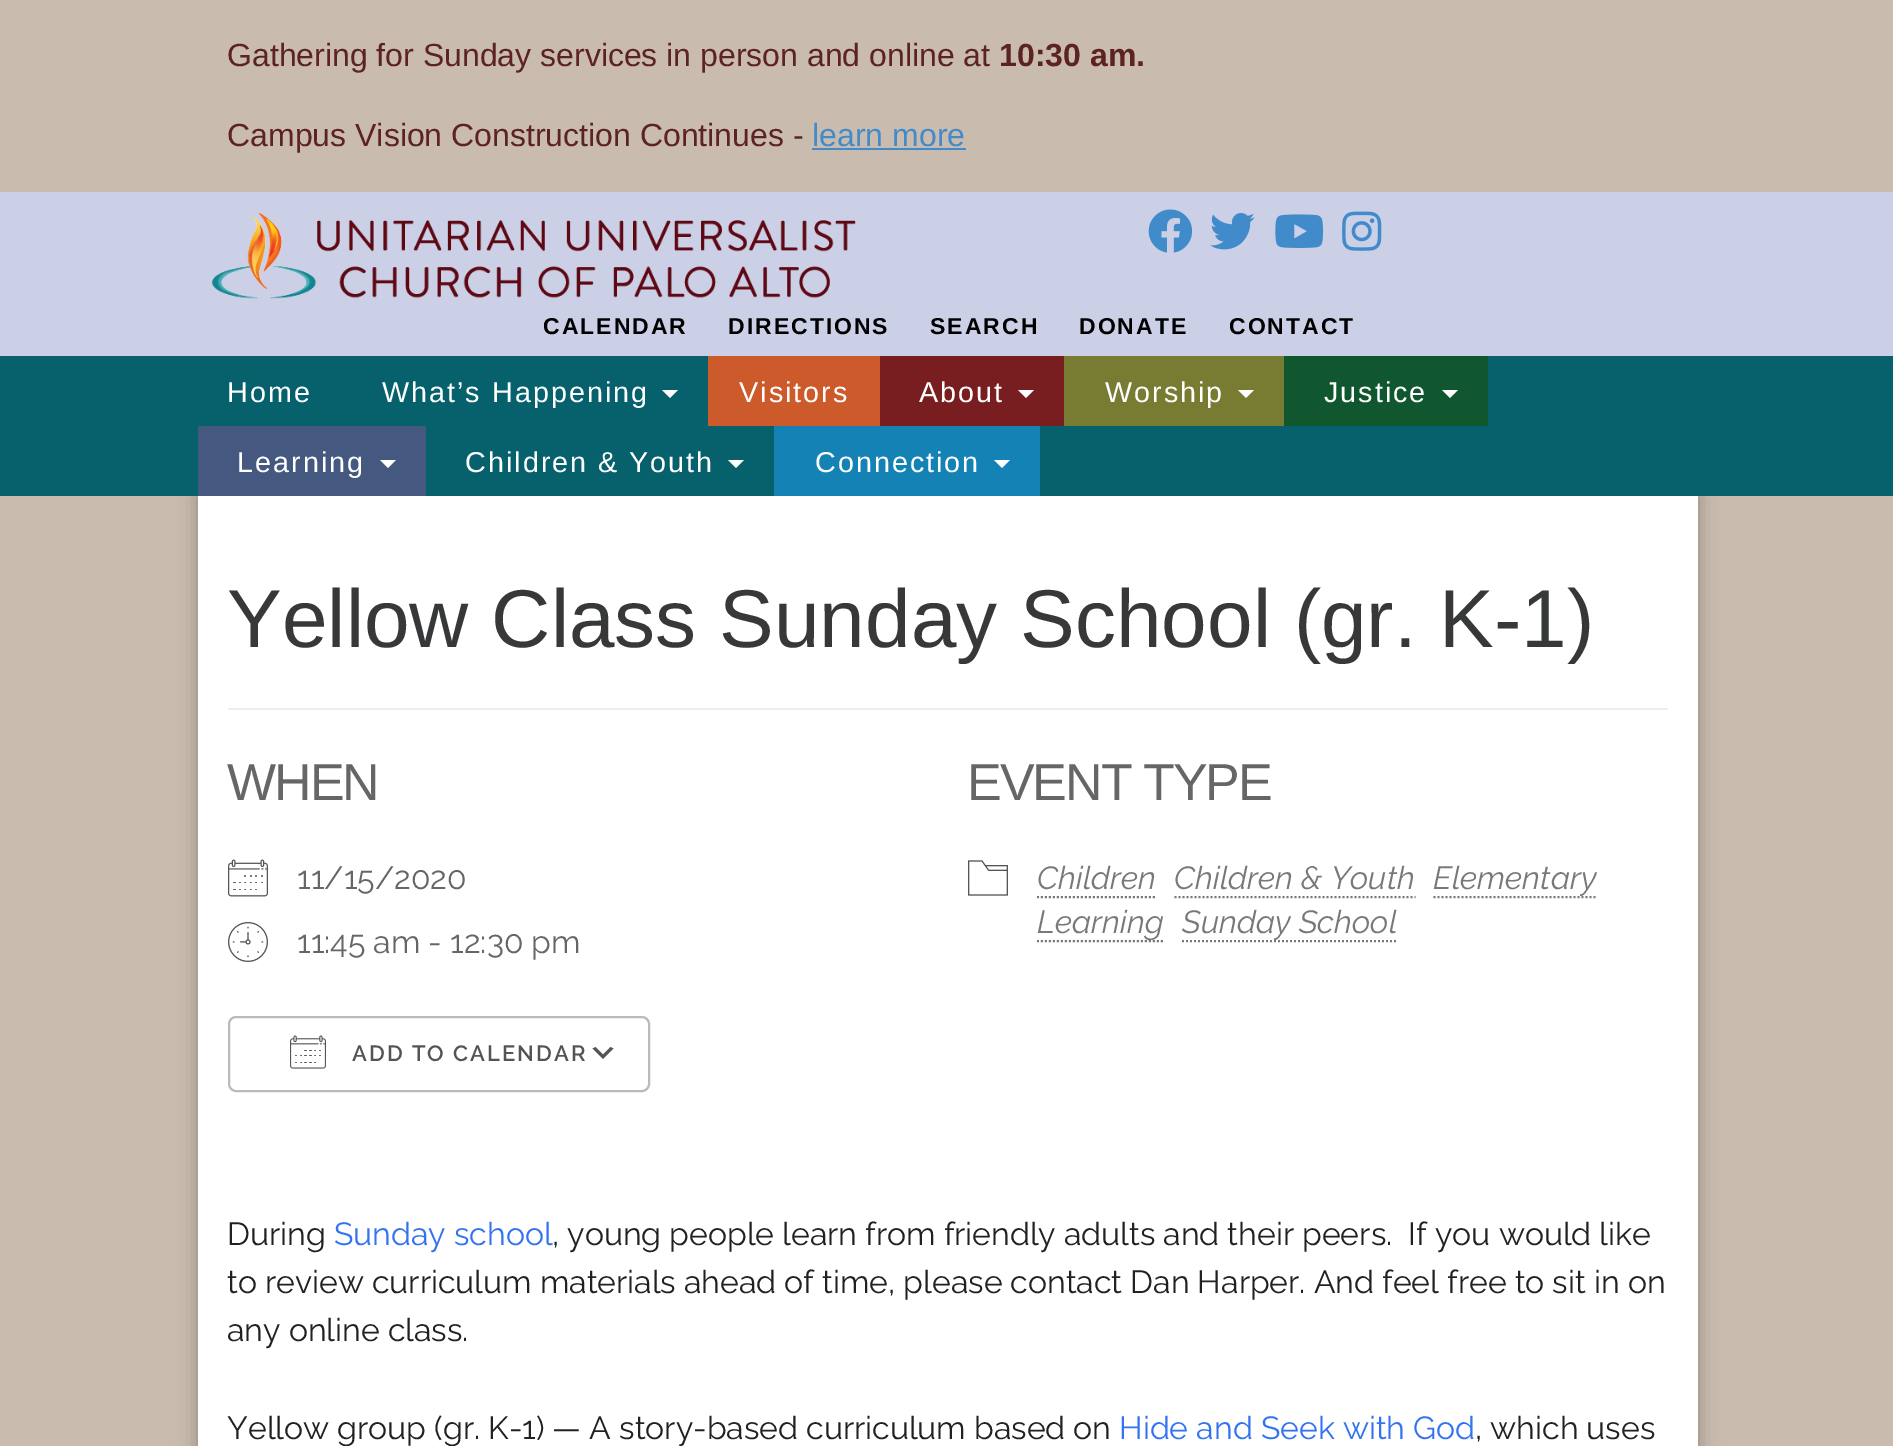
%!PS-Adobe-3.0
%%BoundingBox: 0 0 1893 1446
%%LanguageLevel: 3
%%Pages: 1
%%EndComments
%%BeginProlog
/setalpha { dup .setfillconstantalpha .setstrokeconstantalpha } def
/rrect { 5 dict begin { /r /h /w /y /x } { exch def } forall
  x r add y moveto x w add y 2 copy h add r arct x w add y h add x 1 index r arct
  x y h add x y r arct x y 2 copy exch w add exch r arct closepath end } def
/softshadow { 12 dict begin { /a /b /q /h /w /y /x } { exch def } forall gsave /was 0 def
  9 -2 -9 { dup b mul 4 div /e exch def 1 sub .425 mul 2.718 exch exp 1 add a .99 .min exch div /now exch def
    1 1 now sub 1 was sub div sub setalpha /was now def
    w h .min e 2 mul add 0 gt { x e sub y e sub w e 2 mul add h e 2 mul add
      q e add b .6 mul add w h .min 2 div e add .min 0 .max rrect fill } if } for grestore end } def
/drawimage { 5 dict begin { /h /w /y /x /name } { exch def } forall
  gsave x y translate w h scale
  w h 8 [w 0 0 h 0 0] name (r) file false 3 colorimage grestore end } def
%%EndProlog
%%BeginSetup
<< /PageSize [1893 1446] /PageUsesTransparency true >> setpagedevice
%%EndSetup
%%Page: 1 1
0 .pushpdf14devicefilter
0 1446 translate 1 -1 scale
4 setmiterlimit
0.788 0.737 0.686 setrgbcolor
0 0 1893 1446 rectfill
0.259 0.545 0.792 setrgbcolor
812 148 154 2 rectfill
0.796 0.816 0.906 setrgbcolor
0 192 1893 164 rectfill
(images/1.raw) 212 212 644 87 drawimage
(images/2.raw) 1148 209 45 44 drawimage
(images/3.raw) 1210 213 45 37 drawimage
(images/4.raw) 1275 214 49 34 drawimage
(images/5.raw) 1342 211 40 40 drawimage
0 setgray
198 496 1500 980 0 10 0.3 softshadow
0.027 0.38 0.424 setrgbcolor
0 356 1893 140 rectfill
1 setgray
newpath 662 390 moveto 678 390 lineto 670 398 lineto closepath fill
0.804 0.353 0.169 setrgbcolor
708 356 172 70 rectfill
0.471 0.118 0.125 setrgbcolor
880 356 184 70 rectfill
1 setgray
newpath 1018 390 moveto 1034 390 lineto 1026 398 lineto closepath fill
0.471 0.486 0.196 setrgbcolor
1064 356 220 70 rectfill
1 setgray
newpath 1238 390 moveto 1254 390 lineto 1246 398 lineto closepath fill
0.063 0.337 0.18 setrgbcolor
1284 356 204 70 rectfill
1 setgray
newpath 1442 390 moveto 1458 390 lineto 1450 398 lineto closepath fill
0.271 0.345 0.498 setrgbcolor
198 426 228 70 rectfill
1 setgray
newpath 380 460 moveto 396 460 lineto 388 468 lineto closepath fill
newpath 728 460 moveto 744 460 lineto 736 468 lineto closepath fill
0.078 0.51 0.71 setrgbcolor
774 426 266 70 rectfill
1 setgray
newpath 994 460 moveto 1010 460 lineto 1002 468 lineto closepath fill
198 496 1500 950 rectfill
0.933 setgray
228 708 1440 2 rectfill
(images/6.raw) 228 859 40 38 drawimage
(images/7.raw) 228 922 40 40 drawimage
0.333 setgray
newpath 595.5 1047 moveto 603 1054.5 lineto 610.5 1047 lineto 613.5 1048.5 lineto 603 1059 lineto 592.5 1048.5 lineto closepath fill
0.729 setgray
2 setlinewidth
229 1017 420 74 7 rrect stroke
(images/8.raw) 290 1035 36 34 drawimage
(images/9.raw) 968 860 40 36 drawimage
0.471 setgray
[2 2] 0 setdash
newpath 1037 897 moveto 1156.5 897 lineto stroke
newpath 1174.5 897 moveto 1415.5 897 lineto stroke
newpath 1433.5 897 moveto 1596.5 897 lineto stroke
newpath 1037 941 moveto 1163.5 941 lineto stroke
newpath 1182 941 moveto 1397 941 lineto stroke
/LiberationSans-Regular [32 0 0 -32 0 0] selectfont
0.365 0.133 0.133 setrgbcolor
227 66 moveto (Gathering for Sunday services in person and online at) show
/LiberationSans-Bold [32 0 0 -32 0 0] selectfont
999 66 moveto (10:30 am.) show
/LiberationSans-Regular [32 0 0 -32 0 0] selectfont
227 146 moveto (Campus Vision Construction Continues -) show
0.259 0.545 0.792 setrgbcolor
812 146 moveto (learn more) show
/LiberationSans-Bold [23 0 0 -23 0 0] selectfont
0 setgray
543 334 moveto 2 0 (CALENDAR) ashow
728 334 moveto 2 0 (DIRECTIONS) ashow
930 334 moveto 2 0 (SEARCH) ashow
1079 334 moveto 2 0 (DONATE) ashow
1229 334 moveto 2 0 (CONTACT) ashow
/LiberationSans-Regular [28.75 0 0 -28.75 0 0] selectfont
1 setgray
227 402 moveto 2 0 (Home) ashow
382 402 moveto 2 0 (What’s Happening) ashow
739 402 moveto 2 0 (Visitors) ashow
919 402 moveto 2 0 (About) ashow
1105 402 moveto 2 0 (Worship) ashow
1324 402 moveto 2 0 (Justice) ashow
237 472 moveto 2 0 (Learning) ashow
465 472 moveto 2 0 (Children & Youth) ashow
815 472 moveto 2 0 (Connection) ashow
/LiberationSans-Regular [82 0 0 -82 0 0] selectfont
0.216 0.22 0.224 setrgbcolor
227 647 moveto (Yellow Class Sunday School \(gr. K-1\)) show
/LiberationSans-Regular [52 0 0 -52 0 0] selectfont
0.4 setgray
227 800 moveto -2 0 (WHEN) ashow
/Raleway-Regular [32 0 0 -32 0 0] selectfont
297 889 moveto (11/15/2020) show
297 953 moveto (11:45 am - 12:30 pm) show
/Raleway-SemiBold [22 0 0 -22 0 0] selectfont
0.329 setgray
352 1061 moveto 2 0 (ADD TO CALENDAR) ashow
/LiberationSans-Regular [52 0 0 -52 0 0] selectfont
0.4 setgray
967 800 moveto -2 0 (EVENT TYPE) ashow
/Raleway-Italic [32 0 0 -32 0 0] selectfont
0.471 setgray
1037 889 moveto (Children) show
1174 889 moveto (Children & Youth) show
1433 889 moveto (Elementary) show
1037 933 moveto (Learning) show
1182 933 moveto (Sunday School) show
/Raleway-Regular [32 0 0 -32 0 0] selectfont
0.129 setgray
227 1245 moveto (During) show
0.2 0.447 0.941 setrgbcolor
334 1245 moveto (Sunday school) show
0.129 setgray
552 1245 moveto (, young people learn from friendly adults and their peers.  If you would like) show
227 1293 moveto (to review curriculum materials ahead of time, please contact Dan Harper. And feel free to sit in on) show
227 1341 moveto (any online class.) show
227 1439 moveto (Yellow group \(gr. K-1\) — A story-based curriculum based on) show
0.2 0.447 0.941 setrgbcolor
1119 1439 moveto (Hide and Seek with God) show
0.129 setgray
1475 1439 moveto (, which uses) show
.poppdf14devicefilter showpage
%%EOF
